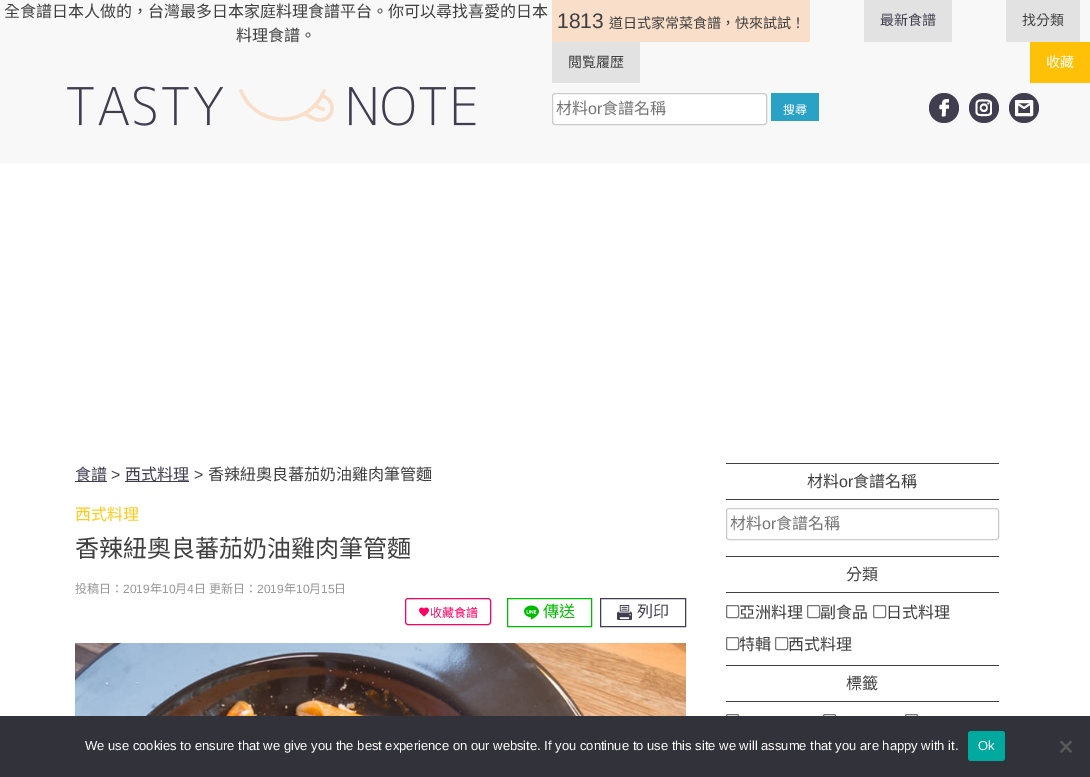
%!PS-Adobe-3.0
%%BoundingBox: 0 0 1090 777
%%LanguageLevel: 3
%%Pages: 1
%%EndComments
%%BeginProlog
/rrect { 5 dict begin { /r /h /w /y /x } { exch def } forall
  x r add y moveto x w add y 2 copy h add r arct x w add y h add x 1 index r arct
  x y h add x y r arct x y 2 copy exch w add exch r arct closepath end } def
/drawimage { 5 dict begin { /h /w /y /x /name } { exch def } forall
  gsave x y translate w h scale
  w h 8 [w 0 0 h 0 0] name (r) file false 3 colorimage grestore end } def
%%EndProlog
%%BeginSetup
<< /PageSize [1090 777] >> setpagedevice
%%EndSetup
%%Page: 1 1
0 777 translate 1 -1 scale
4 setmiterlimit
1 setgray
0 0 1090 777 rectfill
0.973 setgray
0 0 1090 163 rectfill
(images/1.raw) 67 86 409 40 drawimage
0.976 0.871 0.788 setrgbcolor
552 0 258 42 rectfill
0.886 setgray
864 0 88 42 rectfill
1006 0 74 42 rectfill
552 42 88 41 rectfill
1 0.757 0.027 setrgbcolor
1030 42 60 41 rectfill
1 setgray
552.5 93.5 214 31 2.5 rrect gsave fill grestore
0.8 setgray
stroke
0.161 0.635 0.776 setrgbcolor
771 93 48 28 rectfill
0.251 0.243 0.306 setrgbcolor
newpath 944 108 15 0 360 arc closepath fill
1 setgray
newpath 948.5 99 moveto 943.5 99 942 100 942 105 curveto 940 105 939.5 104.5 939.5 106.5 curveto 939.5 109.5 939 109 942 109 curveto 942 113.5 lineto 942 116 941.5 116.5 943.5 116.5 curveto 945.5 116 lineto 946 108.5 lineto 949 108.5 949 109.5 949 106.5 curveto 949 104.5 948.5 105 945.5 105 curveto 945.5 99 949 106 949 100 curveto 949 100 949 99 948.5 99 curveto closepath fill
0.251 0.243 0.306 setrgbcolor
newpath 984 108 15 0 360 arc closepath fill
1 setgray
newpath 984 103.5 moveto 978.5 103.5 978.5 112 984 112 curveto 989 112 989 103.5 984 103.5 curveto closepath 984 110 moveto 980.5 110 980.5 105.5 984 105.5 curveto 987 105.5 987 110 984 110 curveto closepath eofill
newpath 992 104 moveto 992 99.5 987 99.5 984 99.5 curveto 981 99.5 977.5 99 976 102 curveto 975.5 104 975.5 109.5 975.5 112 curveto 976 116.5 980.5 116 984 116 curveto 987 116 992 116.5 992 112 curveto closepath 990 112 moveto 990 115 985.5 114 984 114 curveto 982 114 977.5 115 977.5 112 curveto 977.5 103 lineto 978.5 100.5 982 101.5 984 101.5 curveto 985.5 101.5 990 100.5 990 104 curveto closepath eofill
newpath 988 104.5 moveto 989.5 104.5 989.5 102.5 988 102.5 curveto 987 102.5 987 104.5 988 104.5 curveto closepath fill
0.251 0.243 0.306 setrgbcolor
newpath 1024 108 15 0 360 arc closepath fill
1 setgray
2 setlinewidth
1016 101 16 14 0.5 rrect stroke
1017 102 14 12 rectstroke
1.9 setlinewidth
newpath 1016.5 103 moveto 1024 108 lineto 1031.5 103 lineto stroke
0.251 0.243 0.306 setrgbcolor
75 481 32 1 rectfill
125 481 64 1 rectfill
1 0 0.384 setrgbcolor
1 setlinewidth
405.5 598.5 85 26 2.5 rrect stroke
(images/2.raw) 419 607 10 10 drawimage
0 0.733 0 setrgbcolor
507.5 598.5 84 28 rectstroke
(images/3.raw) 524 605 15 15 drawimage
0.251 0.243 0.306 setrgbcolor
600.5 598.5 85 28 rectstroke
(images/4.raw) 617 605 15 15 drawimage
(images/5.raw) 75 643 611 73 drawimage
0.251 setgray
726 463 273 1 rectfill
726 499 273 1 rectfill
0.8 setgray
726.5 508.5 272 31 2.5 rrect stroke
0.251 setgray
726 556 273 1 rectfill
726 592 273 1 rectfill
0.463 setgray
726.5 605.5 12 12 1.5 rrect stroke
807.5 605.5 12 12 1.5 rrect stroke
873.5 605.5 12 12 1.5 rrect stroke
726.5 637.5 12 12 1.5 rrect stroke
775.5 637.5 12 12 1.5 rrect stroke
0.251 setgray
726 665 273 1 rectfill
726 701 273 1 rectfill
0.463 setgray
726.5 714.5 12 12 1.5 rrect stroke
823.5 714.5 12 12 1.5 rrect stroke
905.5 714.5 12 12 1.5 rrect stroke
0.196 0.196 0.227 setrgbcolor
0 716 1090 61 rectfill
0 0.663 0.616 setrgbcolor
968 731 37 30 3 rrect fill
0.349 0.349 0.365 setrgbcolor
newpath 1070.5 740.5 moveto 1072 742 lineto 1061.5 753 lineto 1060 751.5 lineto closepath fill
newpath 1060 742 moveto 1061.5 740.5 lineto 1072 751.5 lineto 1070.5 753 lineto closepath fill
/NotoSansCJKTC-Regular [16 0 0 -16 0 0] selectfont
0.251 setgray
4 17 moveto (全食譜日本人做的，台灣最多日本家庭料理食譜平台。你可以尋找喜愛的日本) show
236 41 moveto (料理食譜。) show
/LiberationSans-Regular [21 0 0 -21 0 0] selectfont
557 28 moveto (1813) show
/NotoSansCJKTC-Regular [14 0 0 -14 0 0] selectfont
609 28 moveto (道日式家常菜食譜，快來試試！) show
0.251 0.243 0.306 setrgbcolor
880 25 moveto (最新食譜) show
0.251 setgray
1022 25 moveto (找分類) show
568 67 moveto (閲覧履歴) show
1 setgray
1046 67 moveto (收藏) show
/NotoSansCJKTC-Regular [16 0 0 -16 0 0] selectfont
0.459 setgray
556 114 moveto (材料) show
/LiberationSans-Regular [16 0 0 -16 0 0] selectfont
588 114 moveto (or) show
/NotoSansCJKTC-Regular [16 0 0 -16 0 0] selectfont
602 114 moveto (食譜名稱) show
/NotoSansCJKTC-Regular [12 0 0 -12 0 0] selectfont
1 setgray
783 114 moveto (搜尋) show
/NotoSansCJKTC-Regular [16 0 0 -16 0 0] selectfont
0.251 0.243 0.306 setrgbcolor
75 480 moveto (食譜) show
/LiberationSans-Regular [16 0 0 -16 0 0] selectfont
0.251 setgray
111 480 moveto (>) show
/NotoSansCJKTC-Regular [16 0 0 -16 0 0] selectfont
0.251 0.243 0.306 setrgbcolor
125 480 moveto (西式料理) show
/LiberationSans-Regular [16 0 0 -16 0 0] selectfont
0.251 setgray
194 480 moveto (>) show
/NotoSansCJKTC-Regular [16 0 0 -16 0 0] selectfont
208 480 moveto (香辣紐奧良蕃茄奶油雞肉筆管麵) show
1 0.796 0.094 setrgbcolor
75 520 moveto (西式料理) show
/NotoSansCJKTC-Regular [24 0 0 -24 0 0] selectfont
0.251 setgray
75 557 moveto (香辣紐奧良蕃茄奶油雞肉筆管麵) show
/NotoSansCJKTC-Regular [12 0 0 -12 0 0] selectfont
0.592 setgray
75 593 moveto (投稿日：) show
/LiberationSans-Regular [12 0 0 -12 0 0] selectfont
123 593 moveto (2019) show
/NotoSansCJKTC-Regular [12 0 0 -12 0 0] selectfont
150 593 moveto (年) show
/LiberationSans-Regular [12 0 0 -12 0 0] selectfont
162 593 moveto (10) show
/NotoSansCJKTC-Regular [12 0 0 -12 0 0] selectfont
175 593 moveto (月) show
/LiberationSans-Regular [12 0 0 -12 0 0] selectfont
187 593 moveto (4) show
/NotoSansCJKTC-Regular [12 0 0 -12 0 0] selectfont
194 593 moveto (日) show
209 593 moveto (更新日：) show
/LiberationSans-Regular [12 0 0 -12 0 0] selectfont
257 593 moveto (2019) show
/NotoSansCJKTC-Regular [12 0 0 -12 0 0] selectfont
284 593 moveto (年) show
/LiberationSans-Regular [12 0 0 -12 0 0] selectfont
296 593 moveto (10) show
/NotoSansCJKTC-Regular [12 0 0 -12 0 0] selectfont
309 593 moveto (月) show
/LiberationSans-Regular [12 0 0 -12 0 0] selectfont
321 593 moveto (15) show
/NotoSansCJKTC-Regular [12 0 0 -12 0 0] selectfont
334 593 moveto (日) show
1 0 0.384 setrgbcolor
430 617 moveto (收藏食譜) show
/NotoSansCJKTC-Regular [16 0 0 -16 0 0] selectfont
0 0.733 0 setrgbcolor
543 617 moveto (傳送) show
0.251 0.243 0.306 setrgbcolor
637 617 moveto (列印) show
0.251 setgray
807 487 moveto (材料) show
/LiberationSans-Regular [16 0 0 -16 0 0] selectfont
839 487 moveto (or) show
/NotoSansCJKTC-Regular [16 0 0 -16 0 0] selectfont
853 487 moveto (食譜名稱) show
0.459 setgray
730 529 moveto (材料) show
/LiberationSans-Regular [16 0 0 -16 0 0] selectfont
762 529 moveto (or) show
/NotoSansCJKTC-Regular [16 0 0 -16 0 0] selectfont
776 529 moveto (食譜名稱) show
0.251 setgray
846 580 moveto (分類) show
739 618 moveto (亞洲料理) show
820 618 moveto (副食品) show
886 618 moveto (日式料理) show
739 650 moveto (特輯) show
788 650 moveto (西式料理) show
846 689 moveto (標籤) show
/LiberationSans-Regular [13 0 0 -13 0 0] selectfont
1 setgray
85 750 moveto (We use cookies to ensure that we give you the best experience on our website. If you continue to use this site we will assume that you are happy with it.) show
978 750 moveto (Ok) show
showpage
%%EOF
